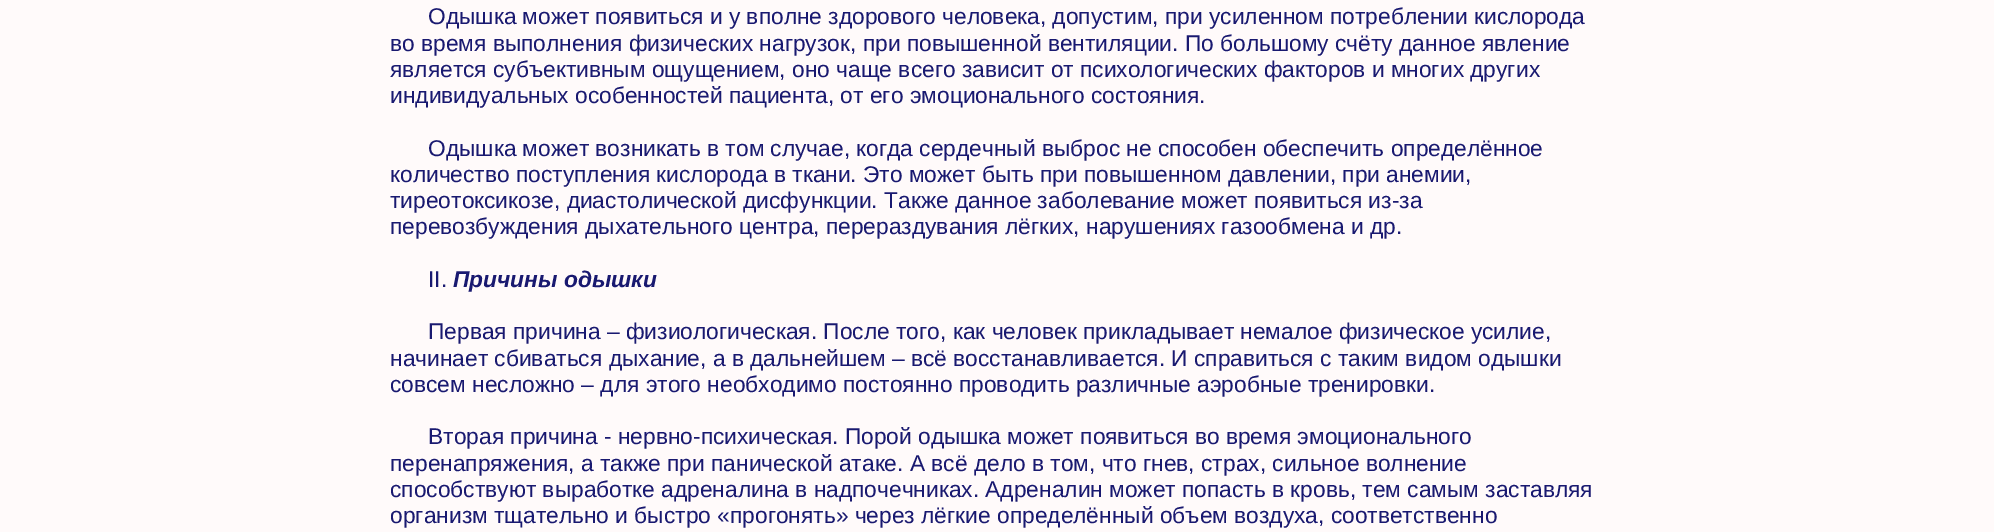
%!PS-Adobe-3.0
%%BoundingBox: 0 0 1994 532
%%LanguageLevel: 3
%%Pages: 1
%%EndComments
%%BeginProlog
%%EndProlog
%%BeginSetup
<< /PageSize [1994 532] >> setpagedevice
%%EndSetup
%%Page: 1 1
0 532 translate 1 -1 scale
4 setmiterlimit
1 0.98 0.98 setrgbcolor
0 0 1994 532 rectfill
/LiberationSans-Regular [22.75 0 0 -22.75 0 0] selectfont
0.098 0.098 0.439 setrgbcolor
428 24 moveto (Одышка может появиться и у вполне здорового человека, допустим, при усиленном потреблении кислорода) show
390 51 moveto (во время выполнения физических нагрузок, при повышенной вентиляции. По большому счёту данное явление) show
390 77 moveto (является субъективным ощущением, оно чаще всего зависит от психологических факторов и многих других) show
390 103 moveto (индивидуальных особенностей пациента, от его эмоционального состояния.) show
428 156 moveto (Одышка может возникать в том случае, когда сердечный выброс не способен обеспечить определённое) show
390 182 moveto (количество поступления кислорода в ткани. Это может быть при повышенном давлении, при анемии,) show
390 208 moveto (тиреотоксикозе, диастолической дисфункции. Также данное заболевание может появиться из-за) show
390 234 moveto (перевозбуждения дыхательного центра, перераздувания лёгких, нарушениях газообмена и др.) show
428 287 moveto (II.) show
/LiberationSans-BoldItalic [22.75 0 0 -22.75 0 0] selectfont
453 287 moveto (Причины одышки) show
/LiberationSans-Regular [22.75 0 0 -22.75 0 0] selectfont
428 339 moveto (Первая причина – физиологическая. После того, как человек прикладывает немалое физическое усилие,) show
390 366 moveto (начинает сбиваться дыхание, а в дальнейшем – всё восстанавливается. И справиться с таким видом одышки) show
390 392 moveto (совсем несложно – для этого необходимо постоянно проводить различные аэробные тренировки.) show
428 444 moveto (Вторая причина - нервно-психическая. Порой одышка может появиться во время эмоционального) show
390 471 moveto (перенапряжения, а также при панической атаке. А всё дело в том, что гнев, страх, сильное волнение) show
390 497 moveto (способствуют выработке адреналина в надпочечниках. Адреналин может попасть в кровь, тем самым заставляя) show
390 523 moveto (организм тщательно и быстро «прогонять» через лёгкие определённый объем воздуха, соответственно) show
showpage
%%EOF
